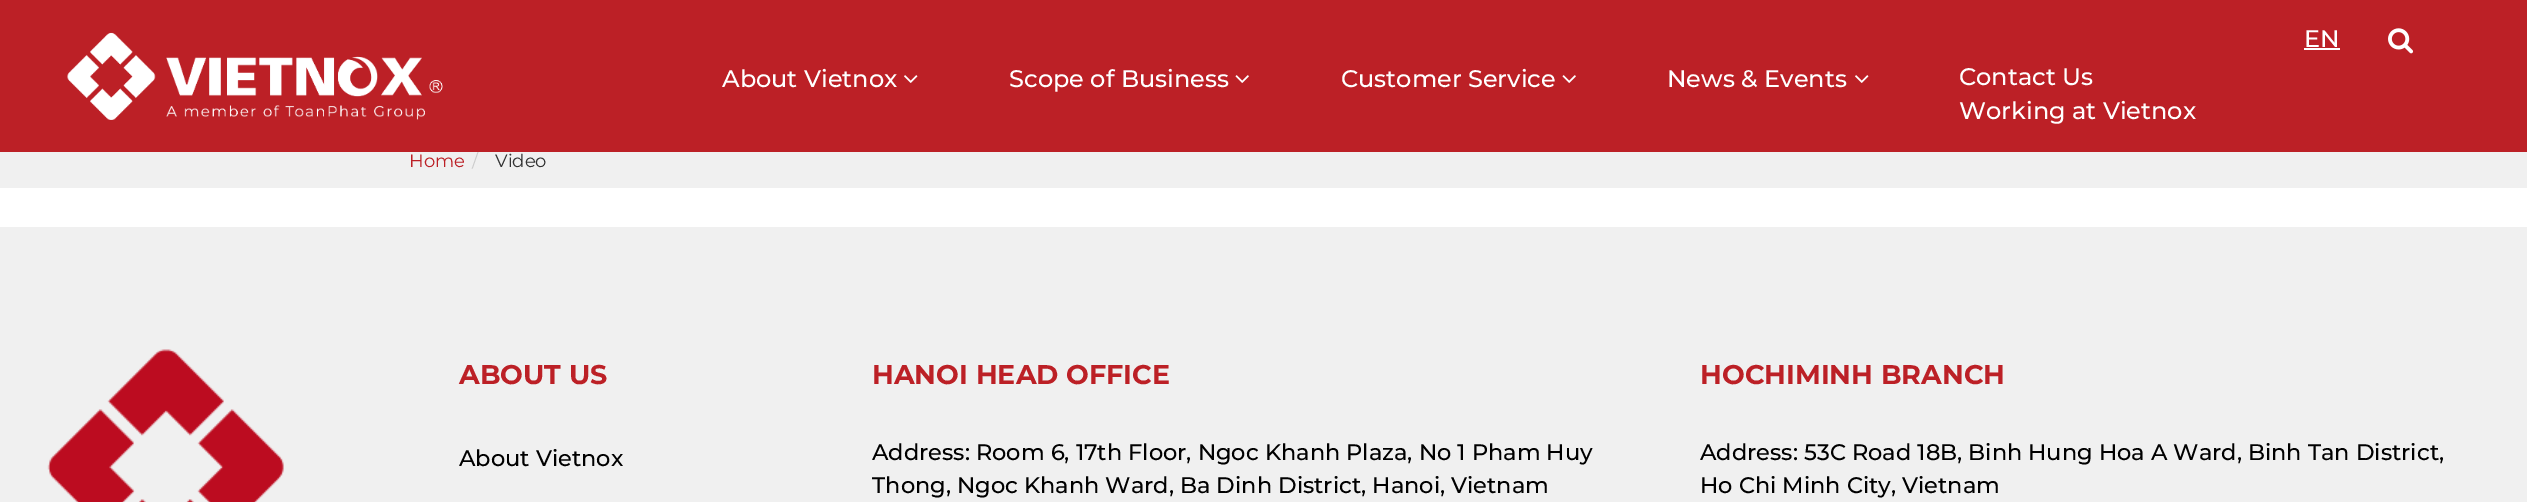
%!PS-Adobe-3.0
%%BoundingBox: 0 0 2527 502
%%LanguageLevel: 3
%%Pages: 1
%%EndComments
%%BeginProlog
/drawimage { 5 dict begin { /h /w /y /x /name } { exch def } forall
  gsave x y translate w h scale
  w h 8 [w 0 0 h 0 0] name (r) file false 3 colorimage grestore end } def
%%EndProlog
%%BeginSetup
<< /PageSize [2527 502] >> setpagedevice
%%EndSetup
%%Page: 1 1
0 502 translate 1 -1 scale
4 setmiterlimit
1 setgray
0 0 2527 502 rectfill
0.941 setgray
0 152 2527 36 rectfill
0 227 2527 275 rectfill
(images/5.raw) 47 349 237 153 drawimage
/Montserrat-Regular [18 0 0 -18 0 0] selectfont
0.737 0.125 0.149 setrgbcolor
409 167 moveto (Home) show
0.8 setgray
472 167 moveto (/) show
0.737 0.125 0.149 setrgbcolor
0 0 2527 152 rectfill
(images/1.raw) 67 32 376 88 drawimage
/Montserrat-Medium [24 0 0 -24 0 0] selectfont
1 setgray
1959 119 moveto (Working at Vietnox) show
1959 85 moveto (Contact Us) show
(images/3.raw) 1855 75 14 8 drawimage
1667 87 moveto (News & Events) show
(images/4.raw) 1562 75 14 8 drawimage
1341 87 moveto (Customer Service) show
(images/4.raw) 1235 75 14 8 drawimage
1009 87 moveto (Scope of Business) show
(images/3.raw) 904 75 14 8 drawimage
722 87 moveto (About Vietnox) show
2304 47 moveto (EN) show
2304 48 36 2 rectfill
(images/2.raw) 2388 28 26 26 drawimage
/Montserrat-Regular [18 0 0 -18 0 0] selectfont
0.2 setgray
495 167 moveto (Video) show
/Montserrat-Bold [27 0 0 -27 0 0] selectfont
0.737 0.125 0.149 setrgbcolor
459 384 moveto (ABOUT US) show
/Montserrat-Medium [22.5 0 0 -22.5 0 0] selectfont
0 setgray
459 466 moveto (About Vietnox) show
/Montserrat-Bold [27 0 0 -27 0 0] selectfont
0.737 0.125 0.149 setrgbcolor
872 384 moveto (HANOI HEAD OFFICE) show
/Montserrat-Medium [22.5 0 0 -22.5 0 0] selectfont
0 setgray
872 460 moveto (Address: Room 6, 17th Floor, Ngoc Khanh Plaza, No 1 Pham Huy) show
872 493 moveto (Thong, Ngoc Khanh Ward, Ba Dinh District, Hanoi, Vietnam) show
/Montserrat-Bold [27 0 0 -27 0 0] selectfont
0.737 0.125 0.149 setrgbcolor
1700 384 moveto (HOCHIMINH BRANCH) show
/Montserrat-Medium [22.5 0 0 -22.5 0 0] selectfont
0 setgray
1700 460 moveto (Address: 53C Road 18B, Binh Hung Hoa A Ward, Binh Tan District,) show
1700 493 moveto (Ho Chi Minh City, Vietnam) show
showpage
%%EOF
